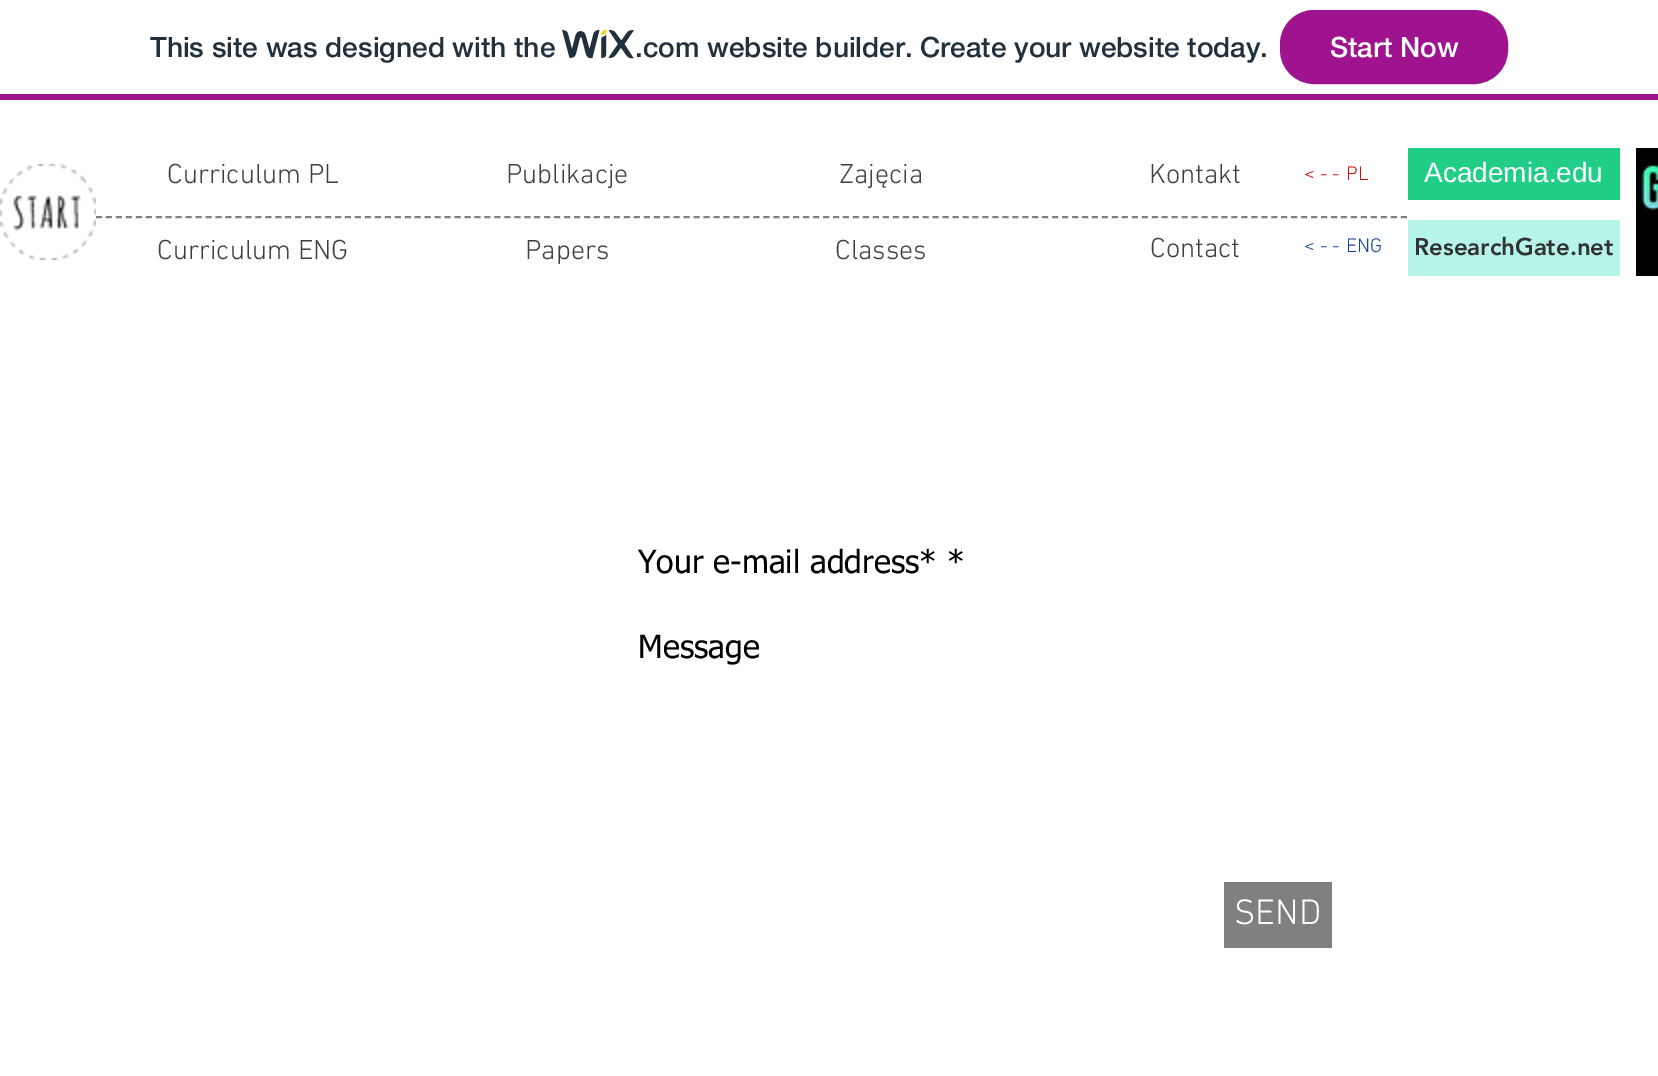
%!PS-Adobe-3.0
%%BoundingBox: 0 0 1658 1076
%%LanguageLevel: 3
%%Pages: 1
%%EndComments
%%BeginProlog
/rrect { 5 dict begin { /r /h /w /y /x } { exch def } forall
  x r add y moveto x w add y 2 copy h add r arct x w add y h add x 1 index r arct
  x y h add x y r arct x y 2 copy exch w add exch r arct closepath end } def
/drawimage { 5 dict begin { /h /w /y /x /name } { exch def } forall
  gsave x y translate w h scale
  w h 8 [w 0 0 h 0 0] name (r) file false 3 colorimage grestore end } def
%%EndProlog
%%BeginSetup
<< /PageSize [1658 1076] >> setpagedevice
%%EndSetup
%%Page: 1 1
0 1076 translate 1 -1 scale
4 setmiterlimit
1 setgray
0 0 1658 1076 rectfill
0.627 0.075 0.557 setrgbcolor
0 94 1658 6 rectfill
(images/1.raw) 562 30 72 29 drawimage
1281 11 226 72 33 rrect gsave fill grestore
2 setlinewidth
stroke
(images/2.raw) 0 164 96 96 drawimage
0.125 0.808 0.533 setrgbcolor
1408 148 212 52 rectfill
(images/3.raw) 1636 148 22 128 drawimage
0.502 setgray
[6 3.96] 0 setdash
newpath 96 217 moveto 1408 217 lineto stroke
0.714 0.953 0.91 setrgbcolor
1408 220 212 56 rectfill
0.502 setgray
1224 882 108 66 rectfill
/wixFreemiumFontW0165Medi-Medium [28 0 0 -28 0 0] selectfont
0.125 0.188 0.235 setrgbcolor
150 57 moveto (This site was designed with the) show
635 57 moveto (.com website builder. Create your website today.) show
1 setgray
1330 57 moveto (Start Now) show
/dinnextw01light-Light [28 0 0 -28 0 0] selectfont
0.251 setgray
167 183 moveto (Curriculum PL) show
506 183 moveto (Publikacje) show
839 183 moveto (Zajęcia) show
1149 183 moveto (Kontakt) show
/dinnextw01light-Light [20 0 0 -20 0 0] selectfont
0.8 0.063 0.075 setrgbcolor
1304 180 moveto (< - -) show
1346 180 moveto (PL) show
0.078 0.275 0.608 setrgbcolor
1304 252 moveto (< - -) show
1346 252 moveto (ENG) show
/LiberationSans-Regular [28 0 0 -28 0 0] selectfont
1 setgray
1424 182 moveto (Academia.edu) show
/dinnextw01light-Light [28 0 0 -28 0 0] selectfont
0.251 setgray
157 259 moveto (Curriculum ENG) show
525 259 moveto (Papers) show
835 259 moveto (Classes) show
1150 257 moveto (Contact) show
/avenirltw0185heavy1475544-Black [24 0 0 -24 0 0] selectfont
0.196 setgray
1414 255 moveto (ResearchGate.net) show
/tahoma-Regular [32 0 0 -32 0 0] selectfont
0 setgray
638 573 moveto (Your e-mail address* *) show
638 658 moveto (Message) show
/dinnextw01light-Light [36 0 0 -36 0 0] selectfont
1 setgray
1234 924 moveto (SEND) show
showpage
%%EOF
